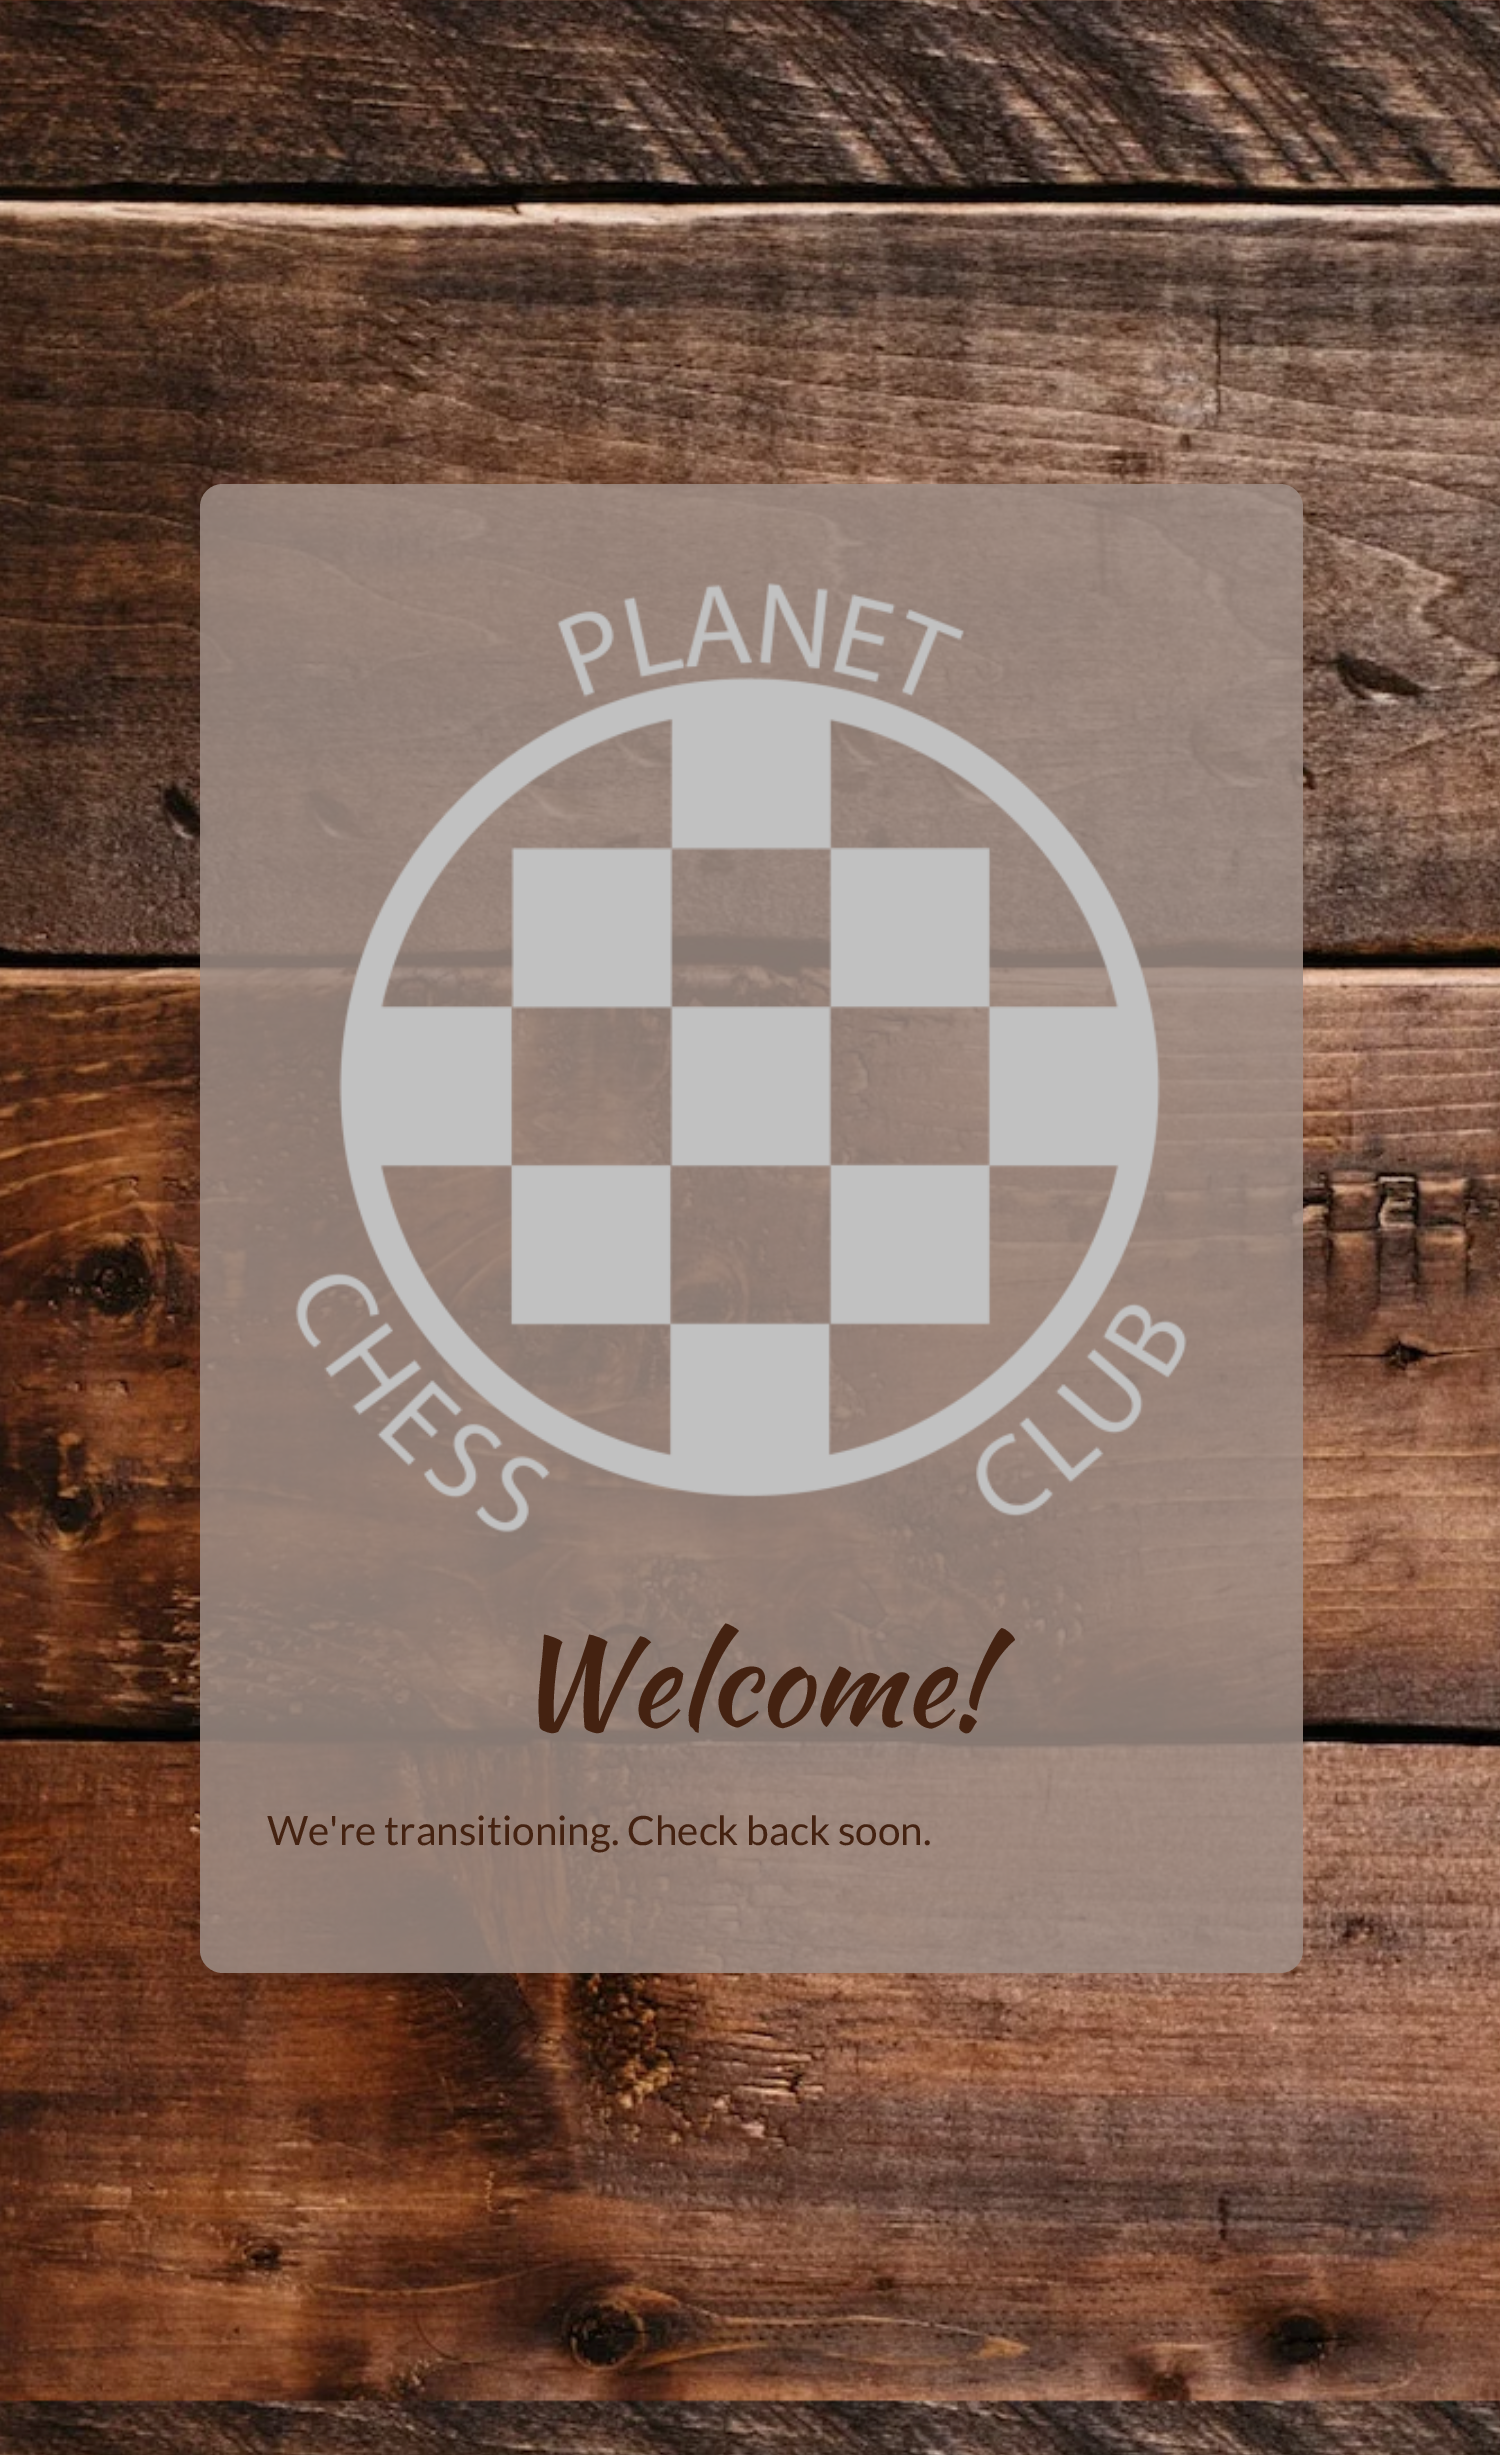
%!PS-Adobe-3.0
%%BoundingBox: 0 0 1500 2455
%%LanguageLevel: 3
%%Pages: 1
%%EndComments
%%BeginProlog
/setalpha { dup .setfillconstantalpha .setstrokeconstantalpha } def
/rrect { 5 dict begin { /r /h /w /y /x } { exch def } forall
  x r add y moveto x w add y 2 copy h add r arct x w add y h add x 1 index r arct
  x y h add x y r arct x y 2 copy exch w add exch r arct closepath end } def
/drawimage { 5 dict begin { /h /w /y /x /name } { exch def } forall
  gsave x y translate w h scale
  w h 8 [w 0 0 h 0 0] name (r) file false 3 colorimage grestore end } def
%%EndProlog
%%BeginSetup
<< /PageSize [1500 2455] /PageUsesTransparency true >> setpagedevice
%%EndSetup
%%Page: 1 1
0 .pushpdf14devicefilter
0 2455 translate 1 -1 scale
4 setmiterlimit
1 setgray
0 0 1500 2455 rectfill
(images/1.raw) 0 0 1500 2455 drawimage
0.85 setalpha
0.62 0.553 0.522 setrgbcolor
200 484 1103 1489 23 rrect fill
1 setalpha
(images/2.raw) 295 582 892 951 drawimage
/KaushanScript-Regular [121.5 0 0 -121.5 0 0] selectfont
0.267 0.133 0.067 setrgbcolor
512 1724 moveto (Welcome!) show
/Lato-Regular [40.5 0 0 -40.5 0 0] selectfont
267 1845 moveto (We're transitioning. Check back soon.) show
.poppdf14devicefilter showpage
%%EOF
